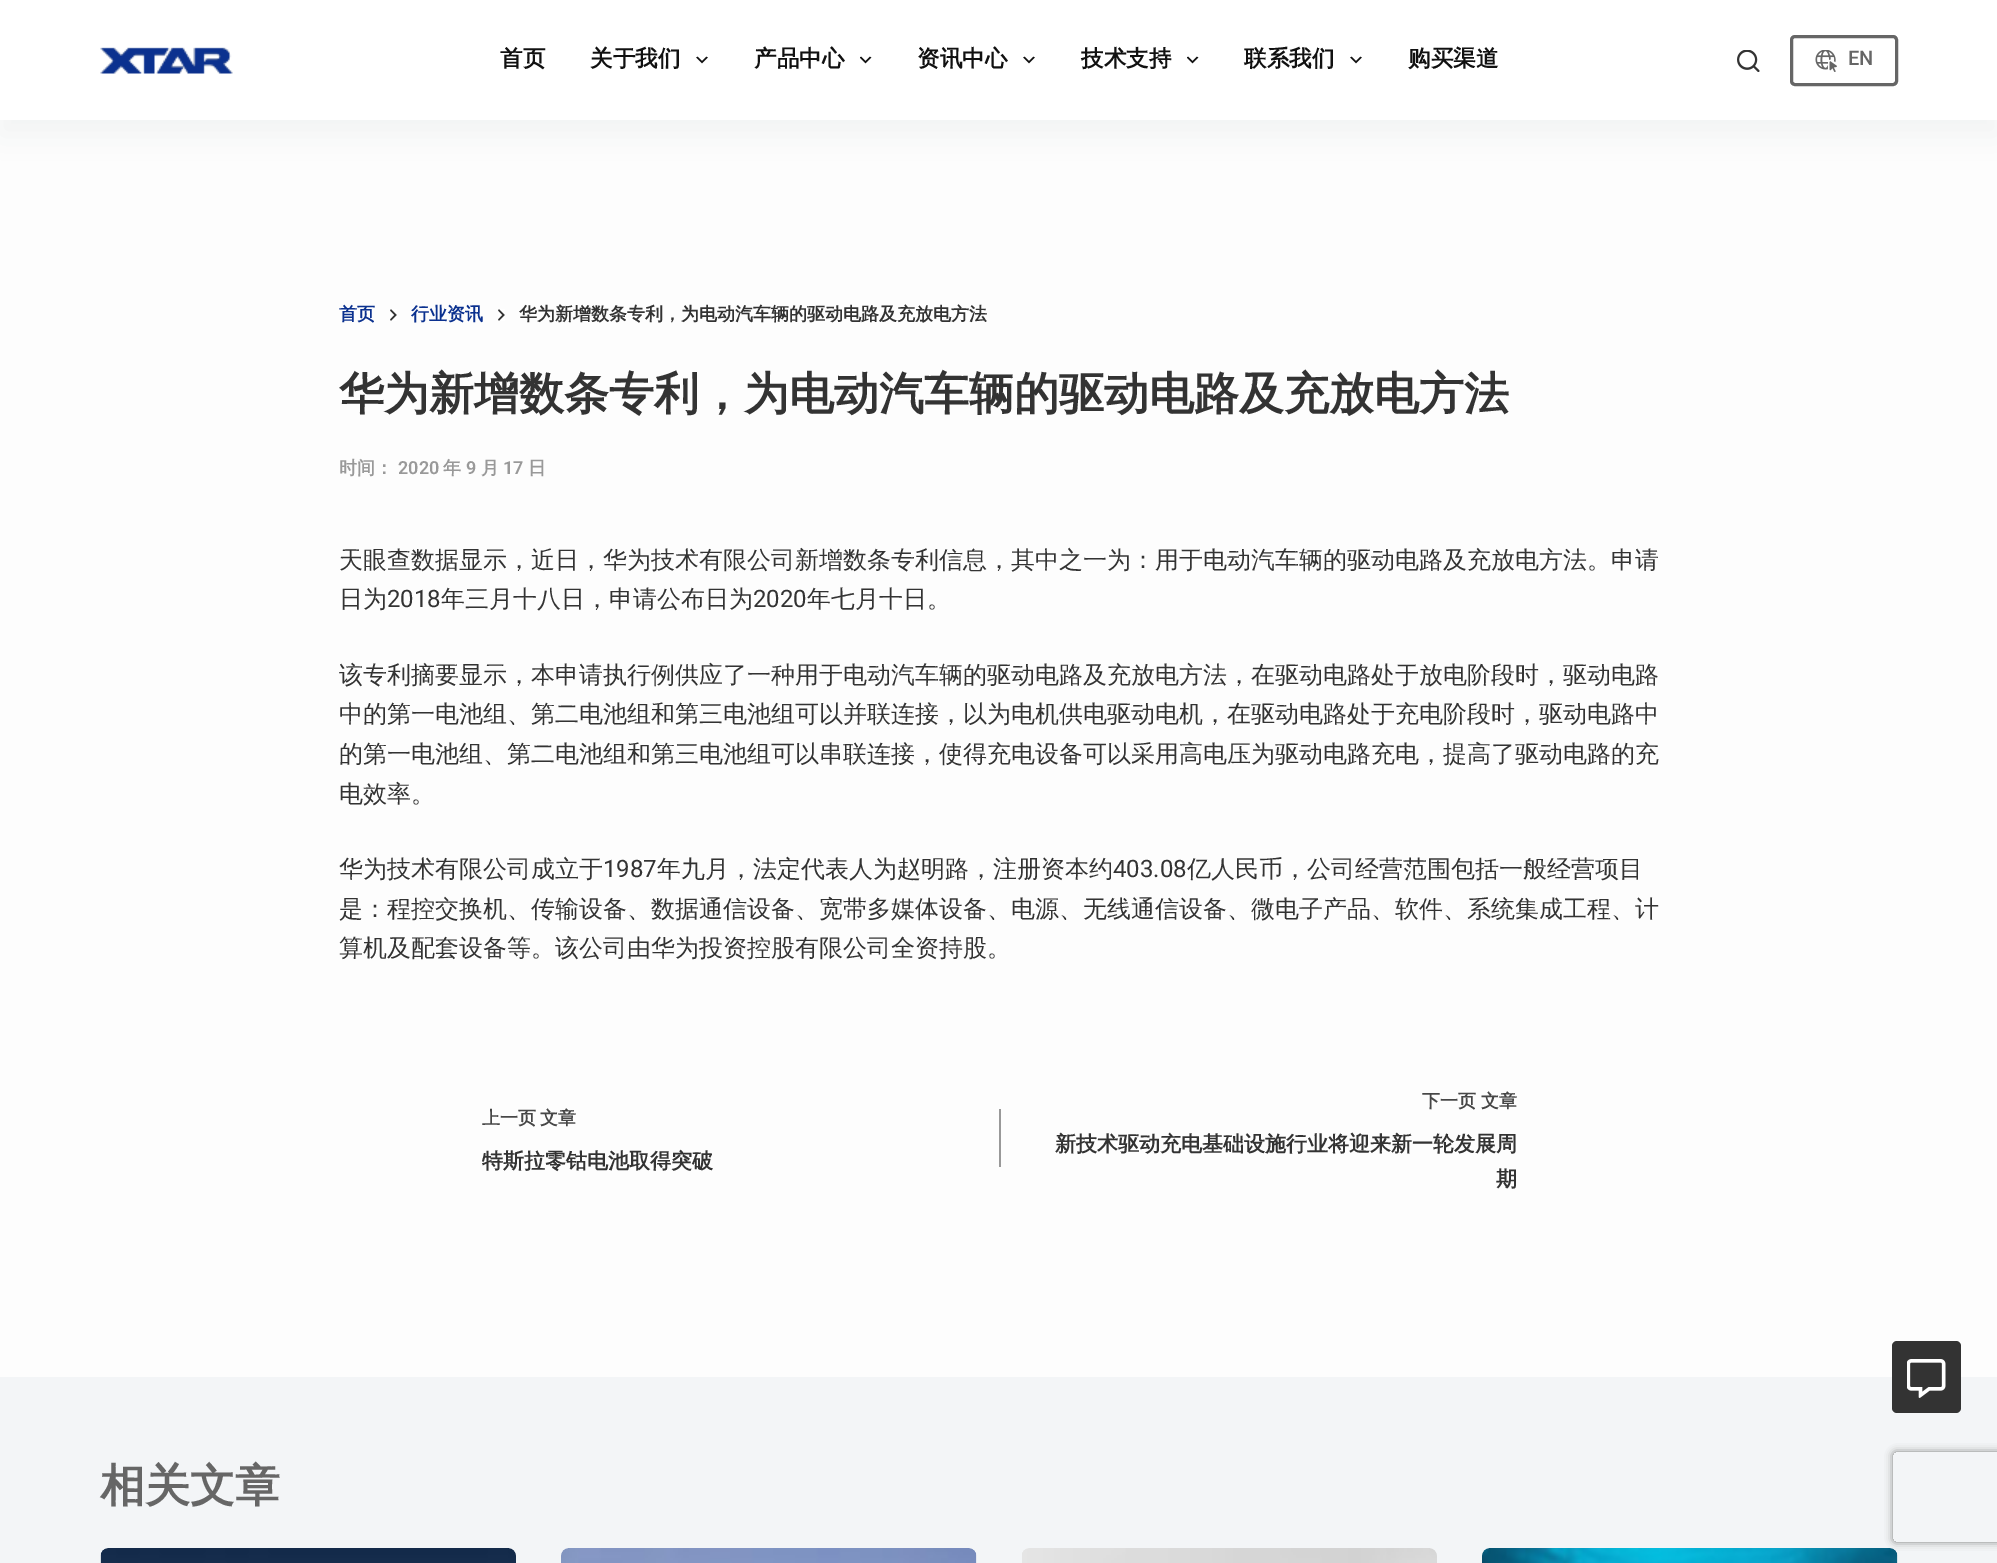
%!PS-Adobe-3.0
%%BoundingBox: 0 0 1997 1563
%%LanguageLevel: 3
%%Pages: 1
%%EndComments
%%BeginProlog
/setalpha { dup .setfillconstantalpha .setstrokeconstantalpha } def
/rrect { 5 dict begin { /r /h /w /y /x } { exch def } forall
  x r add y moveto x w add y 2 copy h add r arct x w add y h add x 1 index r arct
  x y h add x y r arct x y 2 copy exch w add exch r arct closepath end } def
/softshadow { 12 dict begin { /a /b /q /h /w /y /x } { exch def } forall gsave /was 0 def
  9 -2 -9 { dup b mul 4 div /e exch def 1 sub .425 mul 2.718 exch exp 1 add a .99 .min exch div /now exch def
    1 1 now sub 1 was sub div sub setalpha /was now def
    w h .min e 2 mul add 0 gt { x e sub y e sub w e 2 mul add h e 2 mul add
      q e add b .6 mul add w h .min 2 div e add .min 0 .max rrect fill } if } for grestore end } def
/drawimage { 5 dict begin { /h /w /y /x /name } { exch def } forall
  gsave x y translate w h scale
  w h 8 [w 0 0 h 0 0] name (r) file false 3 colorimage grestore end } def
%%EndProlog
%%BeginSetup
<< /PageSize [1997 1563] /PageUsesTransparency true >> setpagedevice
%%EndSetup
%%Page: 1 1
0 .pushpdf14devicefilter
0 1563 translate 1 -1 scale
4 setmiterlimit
0.992 setgray
0 0 1997 1563 rectfill
0.169 0.239 0.314 setrgbcolor
0 15 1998 120 0 15 0.06 softshadow
1 setgray
0 0 1997 120 rectfill
(images/1.raw) 100 47 133 27 drawimage
(images/2.raw) 696 56 12 8 drawimage
(images/3.raw) 860 56 12 8 drawimage
(images/2.raw) 1023 56 12 8 drawimage
(images/3.raw) 1187 56 12 8 drawimage
(images/2.raw) 1350 56 12 8 drawimage
(images/4.raw) 1737 50 23 22 drawimage
0.4 setgray
3 setlinewidth
1791.5 36.5 105 48 3.5 rrect stroke
(images/5.raw) 1815 50 22 22 drawimage
(images/6.raw) 390 309 7 12 drawimage
(images/6.raw) 498 309 7 12 drawimage
0.6 setgray
999 1109 2 58 rectfill
0.953 0.961 0.969 setrgbcolor
0 1377 1997 186 rectfill
(images/7.raw) 100 1548 416 15 drawimage
(images/8.raw) 561 1548 416 15 drawimage
(images/9.raw) 1022 1548 415 15 drawimage
(images/10.raw) 1482 1548 416 15 drawimage
0.2 setgray
1892 1341 69 72 5 rrect fill
(images/11.raw) 1907 1359 39 39 drawimage
gsave
newpath 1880 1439 moveto 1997 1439 lineto 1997 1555 lineto 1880 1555 lineto closepath 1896 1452 moveto 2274 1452 lineto 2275.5 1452 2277 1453.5 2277 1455 curveto 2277 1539 lineto 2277 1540.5 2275.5 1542 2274 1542 curveto 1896 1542 lineto 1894.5 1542 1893 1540.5 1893 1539 curveto 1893 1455 lineto 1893 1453.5 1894.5 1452 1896 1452 curveto closepath eoclip newpath
0.502 setgray
1893 1452 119 90 3 4 1 softshadow
grestore
/WenQuanYiZenHei-Bold [22.5 0 0 -22.5 0 0] selectfont
0.067 setgray
500 66 moveto (首页) show
590 66 moveto (关于我们) show
754 66 moveto (产品中心) show
917 66 moveto (资讯中心) show
1081 66 moveto (技术支持) show
1244 66 moveto (联系我们) show
1408 66 moveto (购买渠道) show
/Roboto-Medium [20 0 0 -20 0 0] selectfont
0.4 setgray
1848 65 moveto (EN) show
/WenQuanYiZenHei-Bold [18 0 0 -18 0 0] selectfont
0.043 0.192 0.561 setrgbcolor
339 320 moveto (首页) show
411 320 moveto (行业资讯) show
0.2 setgray
519 320 moveto (华为新增数条专利，为电动汽车辆的驱动电路及充放电方法) show
/WenQuanYiZenHei-Bold [45 0 0 -45 0 0] selectfont
339 409 moveto (华为新增数条专利，为电动汽车辆的驱动电路及充放电方法) show
/WenQuanYiZenHei-Bold [18 0 0 -18 0 0] selectfont
0.6 setgray
339 474 moveto (时间：) show
/Roboto-SemiBold [18 0 0 -18 0 0] selectfont
398 474 moveto (2020) show
/WenQuanYiZenHei-Bold [18 0 0 -18 0 0] selectfont
443 474 moveto (年) show
/Roboto-SemiBold [18 0 0 -18 0 0] selectfont
466 474 moveto (9) show
/WenQuanYiZenHei-Bold [18 0 0 -18 0 0] selectfont
481 474 moveto (月) show
/Roboto-SemiBold [18 0 0 -18 0 0] selectfont
503 474 moveto (17) show
/WenQuanYiZenHei-Bold [18 0 0 -18 0 0] selectfont
528 474 moveto (日) show
/WenQuanYiZenHei-Medium [24 0 0 -24 0 0] selectfont
0.2 setgray
339 568 moveto (天眼查数据显示，近日，华为技术有限公司新增数条专利信息，其中之一为：用于电动汽车辆的驱动电路及充放电方法。申请) show
339 607 moveto (日为) show
/Roboto-Regular [24 0 0 -24 0 0] selectfont
387 607 moveto (2018) show
/WenQuanYiZenHei-Medium [24 0 0 -24 0 0] selectfont
441 607 moveto (年三月十八日，申请公布日为) show
/Roboto-Regular [24 0 0 -24 0 0] selectfont
753 607 moveto (2020) show
/WenQuanYiZenHei-Medium [24 0 0 -24 0 0] selectfont
807 607 moveto (年七月十日。) show
339 683 moveto (该专利摘要显示，本申请执行例供应了一种用于电动汽车辆的驱动电路及充放电方法，在驱动电路处于放电阶段时，驱动电路) show
339 722 moveto (中的第一电池组、第二电池组和第三电池组可以并联连接，以为电机供电驱动电机，在驱动电路处于充电阶段时，驱动电路中) show
339 762 moveto (的第一电池组、第二电池组和第三电池组可以串联连接，使得充电设备可以采用高电压为驱动电路充电，提高了驱动电路的充) show
339 802 moveto (电效率。) show
339 877 moveto (华为技术有限公司成立于) show
/Roboto-Regular [24 0 0 -24 0 0] selectfont
603 877 moveto (1987) show
/WenQuanYiZenHei-Medium [24 0 0 -24 0 0] selectfont
657 877 moveto (年九月，法定代表人为赵明路，注册资本约) show
/Roboto-Regular [24 0 0 -24 0 0] selectfont
1113 877 moveto (403.08) show
/WenQuanYiZenHei-Medium [24 0 0 -24 0 0] selectfont
1187 877 moveto (亿人民币，公司经营范围包括一般经营项目) show
339 917 moveto (是：程控交换机、传输设备、数据通信设备、宽带多媒体设备、电源、无线通信设备、微电子产品、软件、系统集成工程、计) show
339 956 moveto (算机及配套设备等。该公司由华为投资控股有限公司全资持股。) show
/WenQuanYiZenHei-Bold [18 0 0 -18 0 0] selectfont
0.278 setgray
482 1124 moveto (上一页) show
540 1124 moveto (文章) show
/WenQuanYiZenHei-Bold [21 0 0 -21 0 0] selectfont
0.2 setgray
482 1168 moveto (特斯拉零钴电池取得突破) show
/WenQuanYiZenHei-Bold [18 0 0 -18 0 0] selectfont
0.278 setgray
1422 1107 moveto (下一页) show
1481 1107 moveto (文章) show
/WenQuanYiZenHei-Bold [21 0 0 -21 0 0] selectfont
0.2 setgray
1055 1151 moveto (新技术驱动充电基础设施行业将迎来新一轮发展周) show
1496 1186 moveto (期) show
/WenQuanYiZenHei-Bold [45 0 0 -45 0 0] selectfont
0.4 setgray
100 1501 moveto (相关文章) show
.poppdf14devicefilter showpage
%%EOF
